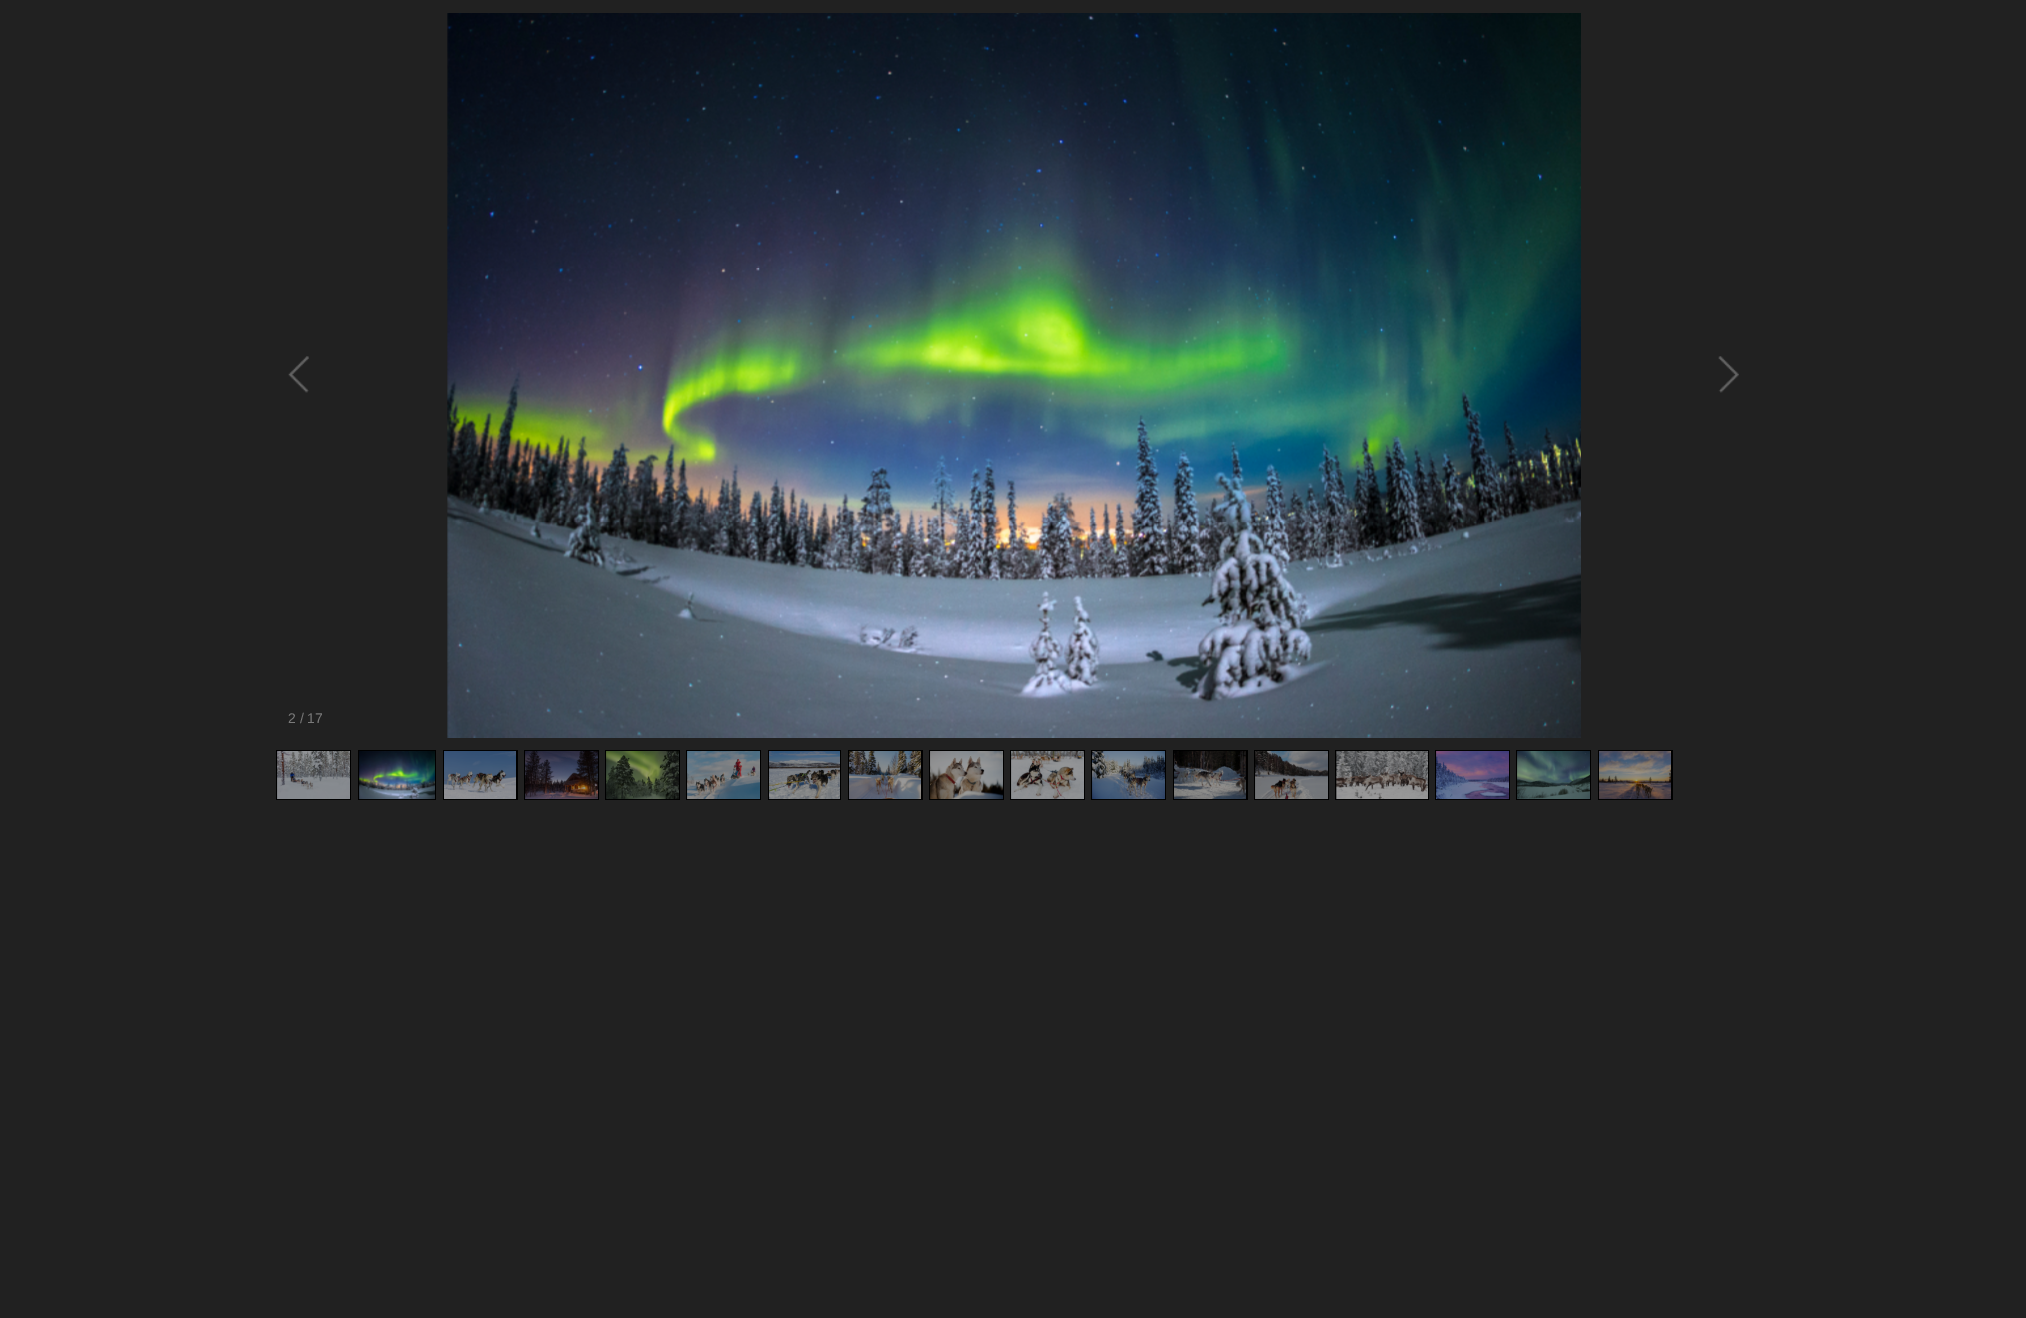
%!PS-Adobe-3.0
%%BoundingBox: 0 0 2026 1318
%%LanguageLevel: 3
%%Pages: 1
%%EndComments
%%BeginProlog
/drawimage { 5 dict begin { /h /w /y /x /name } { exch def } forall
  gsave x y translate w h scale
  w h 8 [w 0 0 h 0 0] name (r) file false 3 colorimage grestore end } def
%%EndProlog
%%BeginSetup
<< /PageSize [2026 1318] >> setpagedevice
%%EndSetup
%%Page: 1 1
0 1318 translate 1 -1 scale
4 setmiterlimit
0.129 setgray
0 0 2026 1318 rectfill
(images/1.raw) 447 13 1134 725 drawimage
(images/2.raw) 288 356 21 37 drawimage
(images/3.raw) 1718 356 21 37 drawimage
0 setgray
276 750 75 50 rectfill
(images/4.raw) 277 751 73 48 drawimage
358 750 78 50 rectfill
(images/5.raw) 359 751 76 48 drawimage
443 750 75 50 rectfill
(images/6.raw) 444 751 72 48 drawimage
524 750 75 50 rectfill
(images/7.raw) 525 751 73 48 drawimage
605 750 75 50 rectfill
(images/8.raw) 606 751 73 48 drawimage
686 750 75 50 rectfill
(images/9.raw) 687 751 73 48 drawimage
768 750 73 50 rectfill
(images/10.raw) 769 751 71 48 drawimage
848 750 75 50 rectfill
(images/11.raw) 849 751 72 48 drawimage
929 750 75 50 rectfill
(images/12.raw) 930 751 73 48 drawimage
1010 750 75 50 rectfill
(images/13.raw) 1011 751 73 48 drawimage
1091 750 75 50 rectfill
(images/14.raw) 1092 751 73 48 drawimage
1173 750 75 50 rectfill
(images/15.raw) 1174 751 72 48 drawimage
1254 750 75 50 rectfill
(images/16.raw) 1255 751 73 48 drawimage
1335 750 94 50 rectfill
(images/17.raw) 1336 751 92 48 drawimage
1435 750 75 50 rectfill
(images/18.raw) 1436 751 73 48 drawimage
1516 750 75 50 rectfill
(images/19.raw) 1517 751 73 48 drawimage
1598 750 75 50 rectfill
(images/20.raw) 1599 751 72 48 drawimage
/LiberationSans-Regular [14 0 0 -14 0 0] selectfont
0.478 setgray
288 723 moveto (2 / 17) show
showpage
%%EOF
